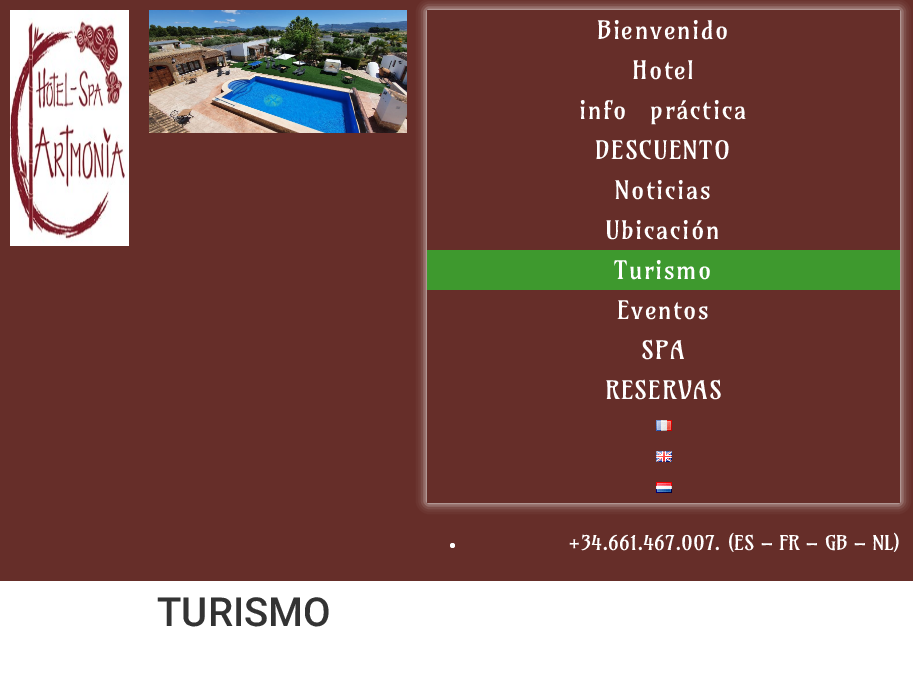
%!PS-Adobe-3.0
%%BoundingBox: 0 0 913 676
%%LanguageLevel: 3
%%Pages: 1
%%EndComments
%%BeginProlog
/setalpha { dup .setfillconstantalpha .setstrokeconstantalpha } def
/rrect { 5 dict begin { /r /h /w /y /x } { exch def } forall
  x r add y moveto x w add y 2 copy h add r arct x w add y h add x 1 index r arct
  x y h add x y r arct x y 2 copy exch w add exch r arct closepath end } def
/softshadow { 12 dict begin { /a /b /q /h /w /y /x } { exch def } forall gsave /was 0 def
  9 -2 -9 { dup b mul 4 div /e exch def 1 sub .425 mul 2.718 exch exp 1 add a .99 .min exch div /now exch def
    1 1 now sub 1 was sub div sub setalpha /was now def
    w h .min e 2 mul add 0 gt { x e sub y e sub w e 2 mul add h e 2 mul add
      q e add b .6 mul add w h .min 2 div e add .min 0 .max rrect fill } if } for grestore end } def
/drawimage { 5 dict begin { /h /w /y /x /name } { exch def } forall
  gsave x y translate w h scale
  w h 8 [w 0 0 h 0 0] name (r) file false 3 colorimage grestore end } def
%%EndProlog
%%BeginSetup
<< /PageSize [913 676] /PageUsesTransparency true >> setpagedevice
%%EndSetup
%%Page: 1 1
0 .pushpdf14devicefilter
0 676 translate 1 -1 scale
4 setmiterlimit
1 setgray
0 0 913 676 rectfill
0.4 0.18 0.161 setrgbcolor
0 0 913 581 rectfill
(images/1.raw) 10 10 119 236 drawimage
(images/2.raw) 149 10 258 123 drawimage
gsave
newpath 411 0 moveto 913 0 lineto 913 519 lineto 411 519 lineto closepath 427 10 moveto 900 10 lineto 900 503 lineto 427 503 lineto closepath eoclip newpath
1 setgray
427 10 473 493 0 5 1 softshadow
grestore
0.243 0.6 0.18 setrgbcolor
427 250 473 40 rectfill
(images/3.raw) 656 420 16 11 drawimage
(images/4.raw) 656 451 16 11 drawimage
(images/5.raw) 656 482 16 11 drawimage
1 setgray
newpath 452.5 545.5 2.5 0 360 arc closepath fill
/Amarante-Regular [25 0 0 -25 0 0] selectfont
597 39 moveto 1.5 0 (Bienvenido) ashow
632 79 moveto 1.5 0 (Hotel) ashow
579 119 moveto 12 0 32 1.5 0 (info práctica) awidthshow
595 159 moveto 1.5 0 (DESCUENTO) ashow
614 199 moveto 1.5 0 (Noticias) ashow
605 239 moveto 1.5 0 (Ubicación) ashow
614 279 moveto 1.5 0 (Turismo) ashow
617 319 moveto 1.5 0 (Eventos) ashow
641 359 moveto 1.5 0 (SPA) ashow
605 399 moveto 1.5 0 (RESERVAS) ashow
/Amarante-Regular [20 0 0 -20 0 0] selectfont
568 550 moveto (+34.661.467.007. \(ES – FR – GB – NL\)) show
/Roboto-Medium [40 0 0 -40 0 0] selectfont
0.2 setgray
157 626 moveto (TURISMO) show
.poppdf14devicefilter showpage
%%EOF
